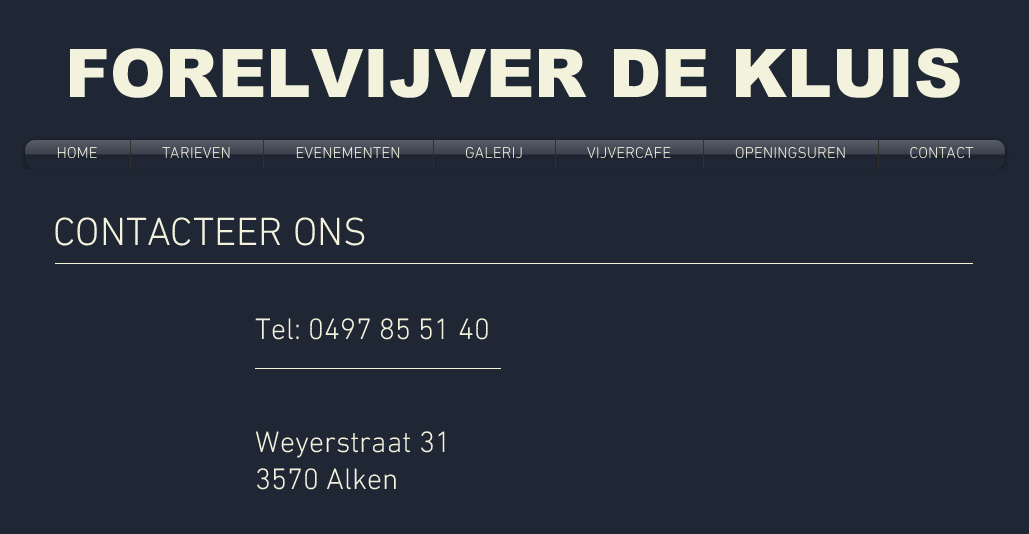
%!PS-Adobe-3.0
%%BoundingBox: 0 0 1029 534
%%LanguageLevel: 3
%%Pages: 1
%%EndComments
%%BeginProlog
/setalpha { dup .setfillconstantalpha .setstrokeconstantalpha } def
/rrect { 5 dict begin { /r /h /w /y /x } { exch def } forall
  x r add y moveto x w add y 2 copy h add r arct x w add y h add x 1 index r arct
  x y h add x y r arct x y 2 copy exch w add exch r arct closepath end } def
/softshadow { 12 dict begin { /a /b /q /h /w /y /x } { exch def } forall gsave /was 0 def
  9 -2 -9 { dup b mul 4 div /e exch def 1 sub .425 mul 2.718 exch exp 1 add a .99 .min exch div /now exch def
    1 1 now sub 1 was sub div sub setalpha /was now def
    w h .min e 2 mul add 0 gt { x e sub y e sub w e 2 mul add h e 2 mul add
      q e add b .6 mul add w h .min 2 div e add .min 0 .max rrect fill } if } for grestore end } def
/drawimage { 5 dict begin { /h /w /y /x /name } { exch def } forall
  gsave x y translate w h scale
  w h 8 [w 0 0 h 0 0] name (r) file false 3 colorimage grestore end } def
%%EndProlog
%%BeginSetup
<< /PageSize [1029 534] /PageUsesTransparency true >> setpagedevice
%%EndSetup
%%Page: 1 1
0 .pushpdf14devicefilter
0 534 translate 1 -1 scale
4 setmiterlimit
0.122 0.149 0.204 setrgbcolor
0 0 1029 534 rectfill
0 setgray
25 141 980 29 10 2 0.6 softshadow
(images/1.raw) 25 140 980 10 drawimage
0.122 0.149 0.204 setrgbcolor
newpath 35 140 moveto 130 140 lineto 130 169 lineto 35 169 lineto 29.5 169 25 164.5 25 159 curveto 25 150 lineto 25 144.5 29.5 140 35 140 curveto closepath fill
131 140 132 29 rectfill
0.192 0.188 0.173 setrgbcolor
130 140 1 29 rectfill
0.122 0.149 0.204 setrgbcolor
264 140 169 29 rectfill
0.192 0.188 0.173 setrgbcolor
263 140 1 29 rectfill
0.122 0.149 0.204 setrgbcolor
434 140 121 29 rectfill
0.192 0.188 0.173 setrgbcolor
433 140 1 29 rectfill
0.122 0.149 0.204 setrgbcolor
556 140 147 29 rectfill
0.192 0.188 0.173 setrgbcolor
555 140 1 29 rectfill
0.122 0.149 0.204 setrgbcolor
704 140 174 29 rectfill
0.192 0.188 0.173 setrgbcolor
703 140 1 29 rectfill
0.122 0.149 0.204 setrgbcolor
newpath 878 140 moveto 995 140 lineto 1000.5 140 1005 144.5 1005 150 curveto 1005 159 lineto 1005 164.5 1000.5 169 995 169 curveto 878 169 lineto closepath fill
0.192 0.188 0.173 setrgbcolor
878 140 1 29 rectfill
0.122 0.149 0.204 setrgbcolor
27 169 976 4 rectfill
0.953 0.949 0.863 setrgbcolor
55 263 918 1 rectfill
255 368 246 1 rectfill
/arial-Black [67 0 0 -67 0 0] selectfont
65 97 moveto (FORELVIJVER DE KLUIS) show
/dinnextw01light-Light [16 0 0 -16 0 0] selectfont
56 158 moveto (HOME) show
(images/2.raw) 25 140 105 19 drawimage
162 158 moveto (TARIEVEN) show
(images/3.raw) 131 140 132 18 drawimage
295 158 moveto (EVENEMENTEN) show
(images/4.raw) 264 140 169 18 drawimage
465 158 moveto (GALERIJ) show
(images/5.raw) 434 140 121 19 drawimage
587 158 moveto (VIJVERCAFE) show
(images/6.raw) 556 140 147 19 drawimage
735 158 moveto (OPENINGSUREN) show
(images/7.raw) 704 140 174 19 drawimage
909 158 moveto (CONTACT) show
(images/8.raw) 879 140 126 19 drawimage
/dinnextw01light-Light [40 0 0 -40 0 0] selectfont
53 245 moveto (CONTACTEER ONS) show
/dinnextw01light-Light [30 0 0 -30 0 0] selectfont
255 339 moveto (Tel: 0497 85 51 40) show
255 452 moveto (Weyerstraat 31) show
255 489 moveto (3570 Alken) show
.poppdf14devicefilter showpage
%%EOF
